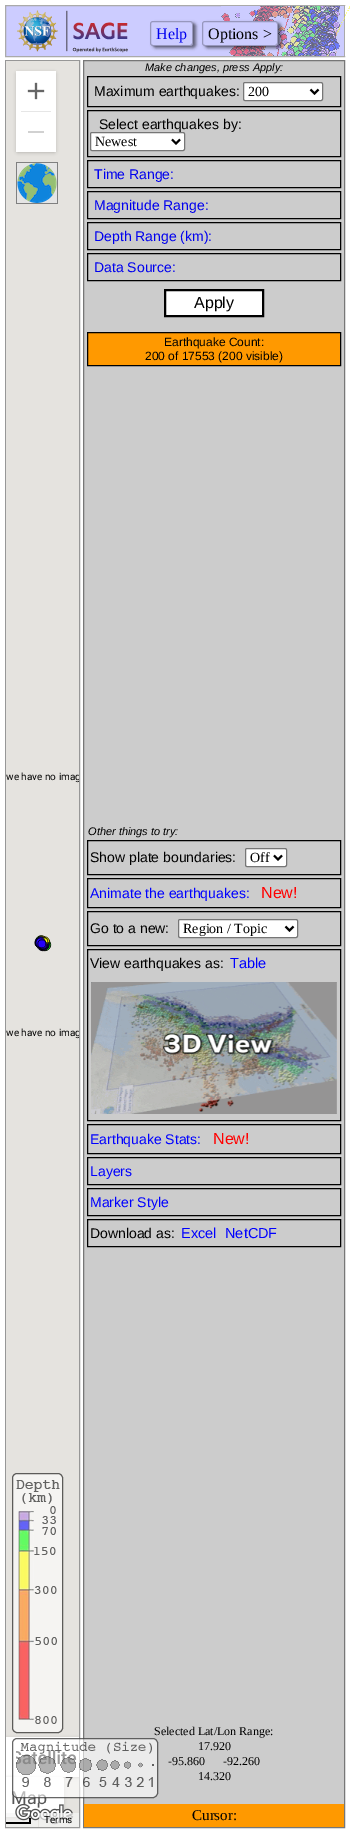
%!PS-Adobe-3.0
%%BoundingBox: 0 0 350 1833
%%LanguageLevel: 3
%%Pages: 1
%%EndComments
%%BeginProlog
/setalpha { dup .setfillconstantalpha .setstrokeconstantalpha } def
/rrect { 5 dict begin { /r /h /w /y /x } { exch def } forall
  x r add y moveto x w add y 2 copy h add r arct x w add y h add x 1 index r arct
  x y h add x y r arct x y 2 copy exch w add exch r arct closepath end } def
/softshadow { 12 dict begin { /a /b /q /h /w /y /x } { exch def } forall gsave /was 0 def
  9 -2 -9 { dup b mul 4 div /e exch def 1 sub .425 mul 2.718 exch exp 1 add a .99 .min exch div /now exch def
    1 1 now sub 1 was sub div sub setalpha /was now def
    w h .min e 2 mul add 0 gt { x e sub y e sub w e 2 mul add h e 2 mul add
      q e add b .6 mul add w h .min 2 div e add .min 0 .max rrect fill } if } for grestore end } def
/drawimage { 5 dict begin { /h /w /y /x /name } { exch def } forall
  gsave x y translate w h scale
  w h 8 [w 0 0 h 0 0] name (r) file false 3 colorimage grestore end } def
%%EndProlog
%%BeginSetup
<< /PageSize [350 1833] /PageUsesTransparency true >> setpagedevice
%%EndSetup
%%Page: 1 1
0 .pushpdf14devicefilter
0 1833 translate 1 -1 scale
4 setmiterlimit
1 setgray
0 0 350 1833 rectfill
0.8 0.8 1 setrgbcolor
newpath 5.5 5.5 moveto 344.5 5.5 lineto 344.5 56.5 lineto 5.5 56.5 lineto closepath gsave fill grestore
0.667 setgray
stroke
(images/1.raw) 17 10 111 43 drawimage
0 setgray
153 23 43 25 3 1.5 0.5 softshadow
0.8 0.8 1 setrgbcolor
150 21 43 25 3 rrect fill
0.26 setalpha
0 setgray
150.5 21.5 42 24 2.5 rrect stroke
1 setalpha
(images/2.raw) 221 6 129 50 drawimage
205 23 76 25 3 1.5 0.5 softshadow
0.8 0.8 1 setrgbcolor
202 21 76 25 3 rrect fill
0.26 setalpha
0 setgray
202.5 21.5 75 24 2.5 rrect stroke
1 setalpha
0.592 setgray
5.5 60.5 74 1767 rectstroke
0.898 0.89 0.875 setrgbcolor
6 61 73 1766 rectfill
0 setgray
17 73 38 79 1 2 0.3 softshadow
1 setgray
16 71 40 81 rectfill
(images/3.raw) 27 82 18 18 drawimage
0.902 setgray
21 111 30 1 rectfill
0.82 setgray
28 131 16 2 rectfill
0.502 setgray
16 162 42 1 rectfill
57 162 1 42 rectfill
16 203 42 1 rectfill
16 162 1 42 rectfill
0.898 setgray
17 163 40 40 rectfill
(images/4.raw) 17 163 40 40 drawimage
(images/5.raw) 34 935 18 17 drawimage
gsave
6 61 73 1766 rectclip
0 setgray
-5 1739 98 38 1 2 0.3 softshadow
grestore
1 setgray
6 1737 73 40 rectfill
gsave
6 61 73 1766 rectclip
0 setgray
-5 1779 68 38 1 2 0.3 softshadow
grestore
newpath 6 1777 moveto 62 1777 lineto 63 1777 64 1778 64 1779 curveto 64 1815 lineto 64 1816 63 1817 62 1817 curveto 6 1817 lineto closepath fill
0.7 setalpha
0.961 setgray
6 1813 32 14 rectfill
1 setalpha
0 setgray
6 1822 25 2 rectfill
29 1818 2 6 rectfill
0.8 setgray
84 61 260 1743 rectfill
0.467 setgray
83.5 60.5 261 1767 rectstroke
0 setgray
87.5 76.5 253 30 rectstroke
1 setgray
243.5 82.5 79 18 1.5 rrect gsave fill grestore
0.463 setgray
stroke
0 setgray
2 setlinewidth
newpath 310.5 89.5 moveto 314.5 93.5 lineto 318.5 89.5 lineto stroke
1 setlinewidth
87.5 110.5 253 46 rectstroke
1 setgray
90.5 132.5 94 18 1.5 rrect gsave fill grestore
0.463 setgray
stroke
0 setgray
2 setlinewidth
newpath 172 139.5 moveto 176 143.5 lineto 180 139.5 lineto stroke
1 setlinewidth
87.5 160.5 253 27 rectstroke
87.5 191.5 253 27 rectstroke
87.5 222.5 253 27 rectstroke
87.5 253.5 253 27 rectstroke
1 setgray
newpath 165 290 moveto 263 290 lineto 263 316 lineto 165 316 lineto closepath gsave fill grestore
0 setgray
2 setlinewidth
stroke
1 0.6 0 setrgbcolor
newpath 87.5 332.5 moveto 340.5 332.5 lineto 340.5 365.5 lineto 87.5 365.5 lineto closepath gsave fill grestore
0 setgray
1 setlinewidth
stroke
87.5 840.5 253 34 rectstroke
1 setgray
245.5 848.5 41 18 1.5 rrect gsave fill grestore
0.463 setgray
stroke
0 setgray
2 setlinewidth
newpath 274 855.5 moveto 278 859.5 lineto 282 855.5 lineto stroke
1 setlinewidth
87.5 878.5 253 29 rectstroke
87.5 911.5 253 34 rectstroke
1 setgray
178.5 919.5 119 18 1.5 rrect gsave fill grestore
0.463 setgray
stroke
0 setgray
2 setlinewidth
newpath 285.5 926.5 moveto 289.5 930.5 lineto 293.5 926.5 lineto stroke
1 setlinewidth
87.5 949.5 253 171 rectstroke
(images/7.raw) 91 982 246 132 drawimage
87.5 1124.5 253 29 rectstroke
87.5 1157.5 253 27 rectstroke
87.5 1188.5 253 27 rectstroke
87.5 1219.5 253 27 rectstroke
1 0.6 0 setrgbcolor
84 1804 260 23 rectfill
0.961 0.957 0.949 setrgbcolor
12.5 1473.5 50 259 4.5 rrect gsave fill grestore
0.361 0.357 0.349 setrgbcolor
stroke
(images/8.raw) 16 1480 44 244 drawimage
/LiberationSerif-Regular [16 0 0 -16 0 0] selectfont
0 0 0.933 setrgbcolor
156 39 moveto (Help) show
0 setgray
208 39 moveto (Options >) show
gsave
6 61 73 1766 rectclip
/Roboto-Regular [10 0 0 -10 0 0] selectfont
6 780 moveto (we have no imag) show
6 1036 moveto (we have no imag) show
grestore
/Roboto-Medium [18 0 0 -18 0 0] selectfont
56 1764 moveto (i) show
/Roboto-Regular [18 0 0 -18 0 0] selectfont
0.337 setgray
11 1804 moveto (Map) show
(images/6.raw) 15 1803 59 22 drawimage
0.7 setalpha
0.961 setgray
39 1813 40 14 rectfill
/Roboto-Regular [10 0 0 -10 0 0] selectfont
1 setalpha
0 setgray
44 1823 moveto (Terms) show
/LiberationSans-Italic [11 0 0 -11 0 0] selectfont
145 71 moveto (Make changes, press Apply:) show
/LiberationSans-Regular [14 0 0 -14 0 0] selectfont
94 96 moveto (Maximum earthquakes:) show
/LiberationSerif-Regular [14 0 0 -14 0 0] selectfont
248 96 moveto (200) show
/LiberationSans-Regular [14 0 0 -14 0 0] selectfont
99 129 moveto (Select earthquakes by:) show
/LiberationSerif-Regular [14 0 0 -14 0 0] selectfont
95 146 moveto (Newest) show
/LiberationSans-Regular [14 0 0 -14 0 0] selectfont
0 0 0.933 setrgbcolor
94 179 moveto (Time Range:) show
94 210 moveto (Magnitude Range:) show
94 241 moveto (Depth Range \(km\):) show
94 272 moveto (Data Source:) show
/LiberationSans-Regular [16 0 0 -16 0 0] selectfont
0 setgray
194 308 moveto (Apply) show
/LiberationSans-Regular [12 0 0 -12 0 0] selectfont
164 346 moveto (Earthquake Count:) show
145 360 moveto (200 of 17553 \(200 visible\)) show
/LiberationSans-Italic [11 0 0 -11 0 0] selectfont
88 835 moveto (Other things to try:) show
/LiberationSans-Regular [14 0 0 -14 0 0] selectfont
90 862 moveto (Show plate boundaries:) show
/LiberationSerif-Regular [14 0 0 -14 0 0] selectfont
250 862 moveto (Off) show
/LiberationSans-Regular [14 0 0 -14 0 0] selectfont
0 0 1 setrgbcolor
90 898 moveto (Animate the earthquakes:) show
/LiberationSans-Regular [16 0 0 -16 0 0] selectfont
1 0 0 setrgbcolor
261 898 moveto (New!) show
/LiberationSans-Regular [14 0 0 -14 0 0] selectfont
0 setgray
90 933 moveto (Go to a new:) show
/LiberationSerif-Regular [14 0 0 -14 0 0] selectfont
183 933 moveto (Region / Topic) show
/LiberationSans-Regular [14 0 0 -14 0 0] selectfont
90 968 moveto (View earthquakes as:) show
/LiberationSans-Regular [14.5 0 0 -14.5 0 0] selectfont
0 0 1 setrgbcolor
230 968 moveto (Table) show
/LiberationSans-Regular [14 0 0 -14 0 0] selectfont
90 1144 moveto (Earthquake Stats:) show
/LiberationSans-Regular [16 0 0 -16 0 0] selectfont
1 0 0 setrgbcolor
213 1144 moveto (New!) show
/LiberationSans-Regular [14 0 0 -14 0 0] selectfont
0 0 1 setrgbcolor
90 1176 moveto (Layers) show
90 1207 moveto (Marker Style) show
0 setgray
90 1238 moveto (Download as:) show
/LiberationSans-Regular [14.5 0 0 -14.5 0 0] selectfont
0 0 1 setrgbcolor
181 1238 moveto (Excel) show
225 1238 moveto (NetCDF) show
/LiberationSerif-Regular [12 0 0 -12 0 0] selectfont
0 setgray
154 1735 moveto (Selected Lat/Lon Range:) show
198 1750 moveto (17.920) show
168 1765 moveto (-95.860      -92.260) show
198 1780 moveto (14.320) show
/LiberationSerif-Regular [15 0 0 -15 0 0] selectfont
192 1820 moveto (Cursor:) show
0.6 setalpha
1 setgray
12 1738 146 60 5 rrect fill
0 setgray
12.5 1738.5 145 59 4.5 rrect stroke
1 setalpha
(images/9.raw) 16 1741 138 46 drawimage
.poppdf14devicefilter showpage
%%EOF
